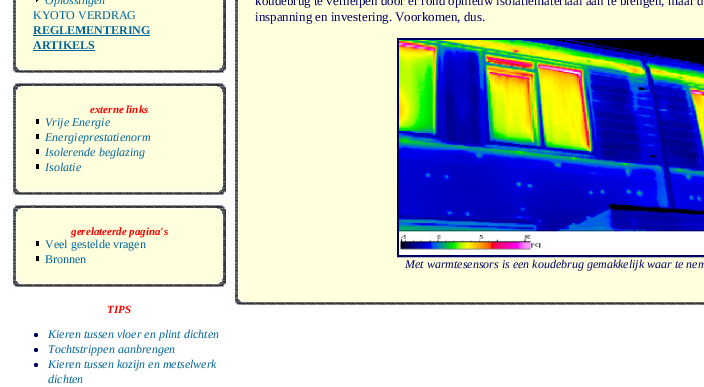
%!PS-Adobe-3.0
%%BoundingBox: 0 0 704 387
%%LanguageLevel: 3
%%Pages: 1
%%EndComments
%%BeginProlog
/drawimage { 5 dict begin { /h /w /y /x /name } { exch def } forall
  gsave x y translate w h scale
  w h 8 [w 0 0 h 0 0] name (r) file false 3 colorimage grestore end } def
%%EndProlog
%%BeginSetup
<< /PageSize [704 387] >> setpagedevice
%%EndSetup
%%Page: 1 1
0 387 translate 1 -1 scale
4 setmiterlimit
1 setgray
0 0 704 387 rectfill
(images/1.raw) 8 0 25 53 drawimage
(images/2.raw) 205 0 23 53 drawimage
1 1 0.867 setrgbcolor
33 0 172 53 rectfill
(images/3.raw) 36 0 2 2 drawimage
0 0.4 0.6 setrgbcolor
33 35 117 1 rectfill
33 50 62 1 rectfill
(images/4.raw) 8 53 25 23 drawimage
(images/5.raw) 33 53 172 20 drawimage
(images/6.raw) 205 53 24 24 drawimage
(images/7.raw) 8 78 25 25 drawimage
(images/8.raw) 33 79 172 24 drawimage
(images/9.raw) 205 78 24 25 drawimage
(images/10.raw) 8 103 25 72 drawimage
1 1 0.867 setrgbcolor
33 103 172 72 rectfill
(images/11.raw) 205 103 23 72 drawimage
0 setgray
36 119 3 5 rectfill
36 134 3 5 rectfill
36 149 3 5 rectfill
36 164 3 5 rectfill
(images/4.raw) 8 175 25 23 drawimage
(images/5.raw) 33 175 172 20 drawimage
(images/6.raw) 205 175 24 24 drawimage
(images/7.raw) 8 200 25 25 drawimage
(images/8.raw) 33 201 172 24 drawimage
(images/9.raw) 205 200 24 25 drawimage
(images/12.raw) 8 225 25 42 drawimage
1 1 0.867 setrgbcolor
33 225 172 42 rectfill
(images/13.raw) 205 225 23 42 drawimage
0 setgray
36 241 3 5 rectfill
36 256 3 5 rectfill
(images/4.raw) 8 267 25 23 drawimage
(images/5.raw) 33 267 172 20 drawimage
(images/6.raw) 205 267 24 24 drawimage
0 0 0.4 setrgbcolor
newpath 36 335 2 0 360 arc closepath fill
newpath 36 350 2 0 360 arc closepath fill
newpath 36 365 2 0 360 arc closepath fill
(images/14.raw) 230 0 25 285 drawimage
1 1 0.867 setrgbcolor
255 0 449 285 rectfill
0 0 0.4 setrgbcolor
2 setlinewidth
398 39 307 217 rectstroke
(images/15.raw) 399 40 305 215 drawimage
(images/4.raw) 230 285 25 23 drawimage
(images/16.raw) 255 285 449 20 drawimage
/LiberationSerif-Italic [12 0 0 -12 0 0] selectfont
0 0.4 0.6 setrgbcolor
45 4 moveto (Oplossingen) show
/LiberationSerif-Regular [12 0 0 -12 0 0] selectfont
33 19 moveto (KYOTO VERDRAG) show
/LiberationSerif-Bold [12 0 0 -12 0 0] selectfont
33 34 moveto (REGLEMENTERING) show
33 49 moveto (ARTIKELS) show
/LiberationSerif-BoldItalic [11 0 0 -11 0 0] selectfont
1 0 0 setrgbcolor
90 113 moveto (externe links) show
/LiberationSerif-Italic [12 0 0 -12 0 0] selectfont
0 0.4 0.6 setrgbcolor
45 126 moveto (Vrije Energie) show
45 141 moveto (Energieprestatienorm) show
45 156 moveto (Isolerende beglazing) show
45 171 moveto (Isolatie) show
/LiberationSerif-BoldItalic [11 0 0 -11 0 0] selectfont
1 0 0 setrgbcolor
71 235 moveto (gerelateerde pagina's) show
/LiberationSerif-Regular [12 0 0 -12 0 0] selectfont
0 0.4 0.6 setrgbcolor
45 248 moveto (Veel gestelde vragen) show
45 263 moveto (Bronnen) show
/LiberationSerif-BoldItalic [11 0 0 -11 0 0] selectfont
1 0 0 setrgbcolor
107 313 moveto (TIPS) show
/LiberationSerif-Italic [12 0 0 -12 0 0] selectfont
0 0.4 0.6 setrgbcolor
48 338 moveto (Kieren tussen vloer en plint dichten) show
48 353 moveto (Tochtstrippen aanbrengen) show
48 368 moveto (Kieren tussen kozijn en metselwerk) show
48 383 moveto (dichten) show
/LiberationSerif-Regular [13 0 0 -13 0 0] selectfont
0 0 0.4 setrgbcolor
255 5 moveto (koudebrug te verhelpen door er rond opnieuw isolatiemateriaal aan te brengen, maar d) show
255 21 moveto (inspanning en investering. Voorkomen, dus.) show
/LiberationSerif-Italic [12 0 0 -12 0 0] selectfont
405 268 moveto (Met warmtesensors is een koudebrug gemakkelijk waar te nem) show
showpage
%%EOF
